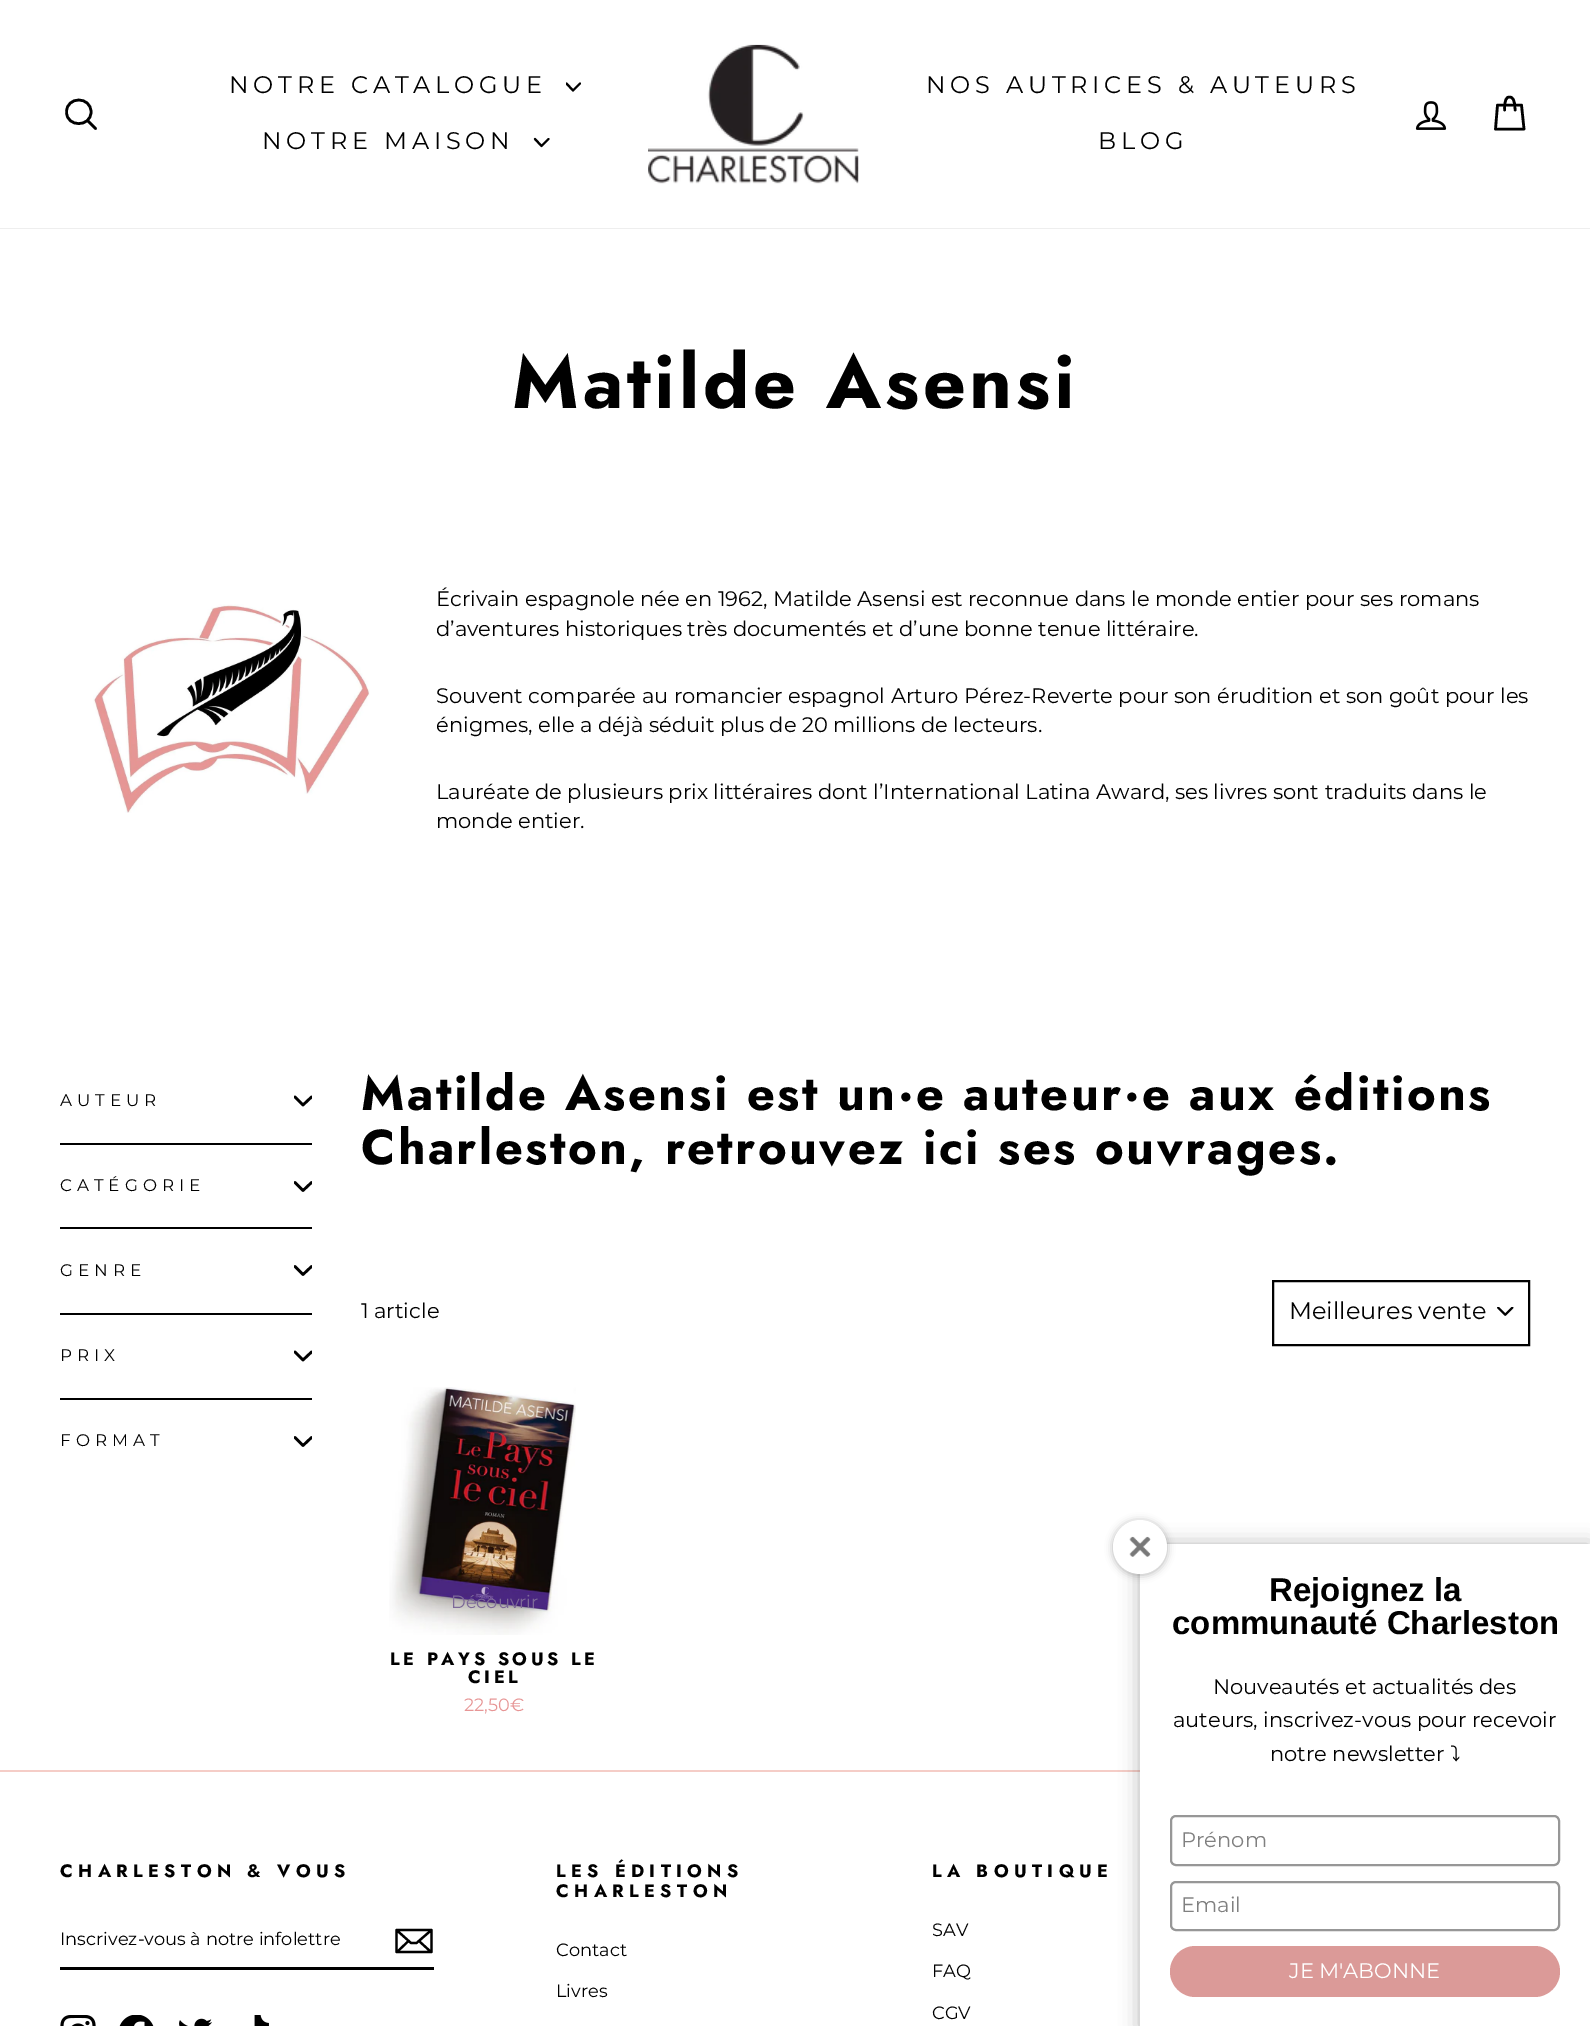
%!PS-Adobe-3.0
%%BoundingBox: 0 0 1590 2026
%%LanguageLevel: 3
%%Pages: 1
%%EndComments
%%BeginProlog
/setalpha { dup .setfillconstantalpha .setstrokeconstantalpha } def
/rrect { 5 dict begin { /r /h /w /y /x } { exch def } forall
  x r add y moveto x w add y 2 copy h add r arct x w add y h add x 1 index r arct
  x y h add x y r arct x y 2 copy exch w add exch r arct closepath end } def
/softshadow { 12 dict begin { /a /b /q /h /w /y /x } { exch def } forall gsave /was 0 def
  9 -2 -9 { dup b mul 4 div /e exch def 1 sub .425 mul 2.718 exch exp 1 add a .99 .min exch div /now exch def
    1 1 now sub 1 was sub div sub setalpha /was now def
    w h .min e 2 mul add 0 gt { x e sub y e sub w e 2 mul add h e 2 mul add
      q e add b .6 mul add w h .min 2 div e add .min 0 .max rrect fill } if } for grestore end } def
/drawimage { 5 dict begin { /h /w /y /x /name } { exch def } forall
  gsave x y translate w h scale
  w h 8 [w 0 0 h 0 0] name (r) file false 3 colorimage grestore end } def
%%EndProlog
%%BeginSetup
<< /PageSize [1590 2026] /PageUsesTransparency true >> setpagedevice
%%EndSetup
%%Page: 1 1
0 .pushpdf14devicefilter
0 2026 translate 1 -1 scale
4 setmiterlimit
1 setgray
0 0 1590 2026 rectfill
gsave
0 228 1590 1 rectclip
0 setgray
0 0 1590 228 0 1 0.2 softshadow
grestore
0 setgray
2.6 setlinewidth
1 setlinecap
1 setlinejoin
newpath 91 112 moveto 91 127.5 66.5 127.5 66.5 112 curveto 66.5 96 91 96 91 112 curveto closepath 95.5 128.5 moveto 87.5 120.5 lineto stroke
gsave
566 80 15 15 rectclip
2.1 setlinewidth
newpath 566.5 83.5 moveto 573 90.5 lineto 580 83.5 lineto stroke
grestore
2.1 setlinewidth
newpath 535 139 moveto 541.5 146 lineto 548.5 139 lineto stroke
(images/1.raw) 648 44 211 140 drawimage
(images/2.raw) 1415 101 32 29 drawimage
2.6 setlinewidth
newpath 1504.5 110 moveto 1504.5 99.5 1506.5 97 1509.5 97 curveto 1512.5 97 1515 99.5 1515 110 curveto 1497.5 105 moveto 1521.5 105 lineto 1524 129 lineto 1495.5 129 lineto closepath stroke
(images/3.raw) 93 604 277 209 drawimage
gsave
294 1092 18 18 rectclip
newpath 295 1097 moveto 303 1105 lineto 311.5 1097 lineto stroke
grestore
60 1143 252 2 rectfill
gsave
294 1178 18 18 rectclip
newpath 295 1182.5 moveto 303 1190.5 lineto 311.5 1182.5 lineto stroke
grestore
60 1227 252 2 rectfill
gsave
294 1262 18 18 rectclip
newpath 295 1266.5 moveto 303 1274.5 lineto 311.5 1266.5 lineto stroke
grestore
60 1313 252 2 rectfill
gsave
294 1347 18 18 rectclip
newpath 295 1352 moveto 303 1360 lineto 311.5 1352 lineto stroke
grestore
60 1398 252 2 rectfill
gsave
294 1433 18 18 rectclip
newpath 295 1437.5 moveto 303 1445.5 lineto 311.5 1437.5 lineto stroke
grestore
(images/4.raw) 1497 1307 17 9 drawimage
2 setlinewidth
0 setlinecap
0 setlinejoin
1273 1281 256 64 rectstroke
(images/5.raw) 389 1387 187 248 drawimage
0.961 0.804 0.78 setrgbcolor
0 1770 1140 2 rectfill
0 setgray
60 1967 374 3 rectfill
2.2 setlinewidth
1 setlinecap
1 setlinejoin
newpath 431.5 1952 moveto 396.5 1952 lineto 396.5 1930 lineto 431.5 1930 lineto closepath 396.5 1930 moveto 411 1943 lineto 416.5 1943 lineto 431.5 1930 lineto 408.5 1941 moveto 397 1952 lineto 431 1952 moveto 419 1941 lineto stroke
(images/6.raw) 60 2015 36 11 drawimage
(images/7.raw) 119 2015 35 11 drawimage
(images/8.raw) 179 2018 33 8 drawimage
(images/9.raw) 254 2015 15 11 drawimage
1140 1545 450 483 0 10 0.3 softshadow
1 setgray
1140 1544 450 482 rectfill
0 setgray
1113 1521 54 54 27 4 0.3 softshadow
1 setgray
newpath 1140 1547 27 0 360 arc closepath fill
(images/10.raw) 1129 1536 22 21 drawimage
0.592 setgray
2 setlinewidth
0 setlinecap
0 setlinejoin
1171 1816 388 49 5 rrect stroke
1171 1882 388 48 5 rrect stroke
0.859 0.604 0.596 setrgbcolor
1170 1946 390 51 25.5 rrect fill
/Montserrat-Regular [24 0 0 -24 0 0] selectfont
0 setgray
229 93 moveto 4.8 0 (NOTRE CATALOGUE) ashow
262 149 moveto 4.8 0 (NOTRE MAISON) ashow
926 93 moveto 4.8 0 (NOS AUTRICES & AUTEURS) ashow
1098 149 moveto 4.8 0 (BLOG) ashow
/Jost-Bold [75 0 0 -75 0 0] selectfont
512 408 moveto 3.75 0 (Matilde Asensi) ashow
/Montserrat-Regular [21 0 0 -21 0 0] selectfont
436 606 moveto (Écrivain espagnole née en 1962, Matilde Asensi est reconnue dans le monde entier pour ses romans) show
436 636 moveto (d’aventures historiques très documentés et d’une bonne tenue littéraire.) show
436 703 moveto (Souvent comparée au romancier espagnol Arturo Pérez-Reverte pour son érudition et son goût pour les) show
436 732 moveto (énigmes, elle a déjà séduit plus de 20 millions de lecteurs.) show
436 799 moveto (Lauréate de plusieurs prix littéraires dont l’International Latina Award, ses livres sont traduits dans le) show
436 828 moveto (monde entier.) show
/Montserrat-Regular [16.75 0 0 -16.75 0 0] selectfont
60 1106 moveto 5 0 (AUTEUR) ashow
60 1191 moveto 5 0 (CATÉGORIE) ashow
60 1276 moveto 5 0 (GENRE) ashow
60 1361 moveto 5 0 (PRIX) ashow
60 1446 moveto 5 0 (FORMAT) ashow
/Jost-Bold [48.75 0 0 -48.75 0 0] selectfont
361 1110 moveto 2.45 0 (Matilde Asensi est un·e auteur·e aux éditions) ashow
361 1164 moveto 2.45 0 (Charleston, retrouvez ici ses ouvrages.) ashow
/Montserrat-Regular [21 0 0 -21 0 0] selectfont
361 1318 moveto (1 article) show
/Montserrat-Regular [24 0 0 -24 0 0] selectfont
1289 1319 moveto (Meilleures vente) show
/Montserrat-Regular [17.8 0 0 -17.8 0 0] selectfont
0.49 0.412 0.596 setrgbcolor
451 1608 moveto (Découvrir) show
/Jost-Bold [18 0 0 -18 0 0] selectfont
0 setgray
390 1665 moveto 3.6 0 (LE PAYS SOUS LE) ashow
468 1683 moveto 3.6 0 (CIEL) ashow
/Montserrat-Regular [17.8 0 0 -17.8 0 0] selectfont
0.906 0.588 0.588 setrgbcolor
464 1711 moveto (22,50€) show
/Jost-Bold [18 0 0 -18 0 0] selectfont
0 setgray
60 1877 moveto 5.4 0 (CHARLESTON & VOUS) ashow
/Montserrat-Regular [17.8 0 0 -17.8 0 0] selectfont
60 1945 moveto (Inscrivez-vous à notre infolettre) show
/Jost-Bold [18 0 0 -18 0 0] selectfont
556 1877 moveto 5.4 0 (LES ÉDITIONS) ashow
556 1897 moveto 5.4 0 (CHARLESTON) ashow
/Montserrat-Regular [17.8 0 0 -17.8 0 0] selectfont
556 1956 moveto (Contact) show
556 1997 moveto (Livres) show
/Jost-Bold [18 0 0 -18 0 0] selectfont
932 1877 moveto 5.4 0 (LA BOUTIQUE) ashow
/Montserrat-Regular [17.8 0 0 -17.8 0 0] selectfont
932 1936 moveto (SAV) show
932 1977 moveto (FAQ) show
932 2019 moveto (CGV) show
/LiberationSans-Bold [33 0 0 -33 0 0] selectfont
1269 1601 moveto (Rejoignez la) show
1172 1634 moveto (communauté Charleston) show
/Montserrat-Regular [21 0 0 -21 0 0] selectfont
1213 1694 moveto (Nouveautés et actualités des) show
1173 1727 moveto (auteurs, inscrivez-vous pour recevoir) show
1270 1761 moveto (notre newsletter) show
/IPAGothic-Regular [21 0 0 -21 0 0] selectfont
1450 1761 moveto (⤵) show
/Montserrat-Regular [21 0 0 -21 0 0] selectfont
0.502 setgray
1181 1847 moveto (Prénom) show
1181 1912 moveto (Email) show
1 setgray
1289 1978 moveto (JE M'ABONNE) show
.poppdf14devicefilter showpage
%%EOF
